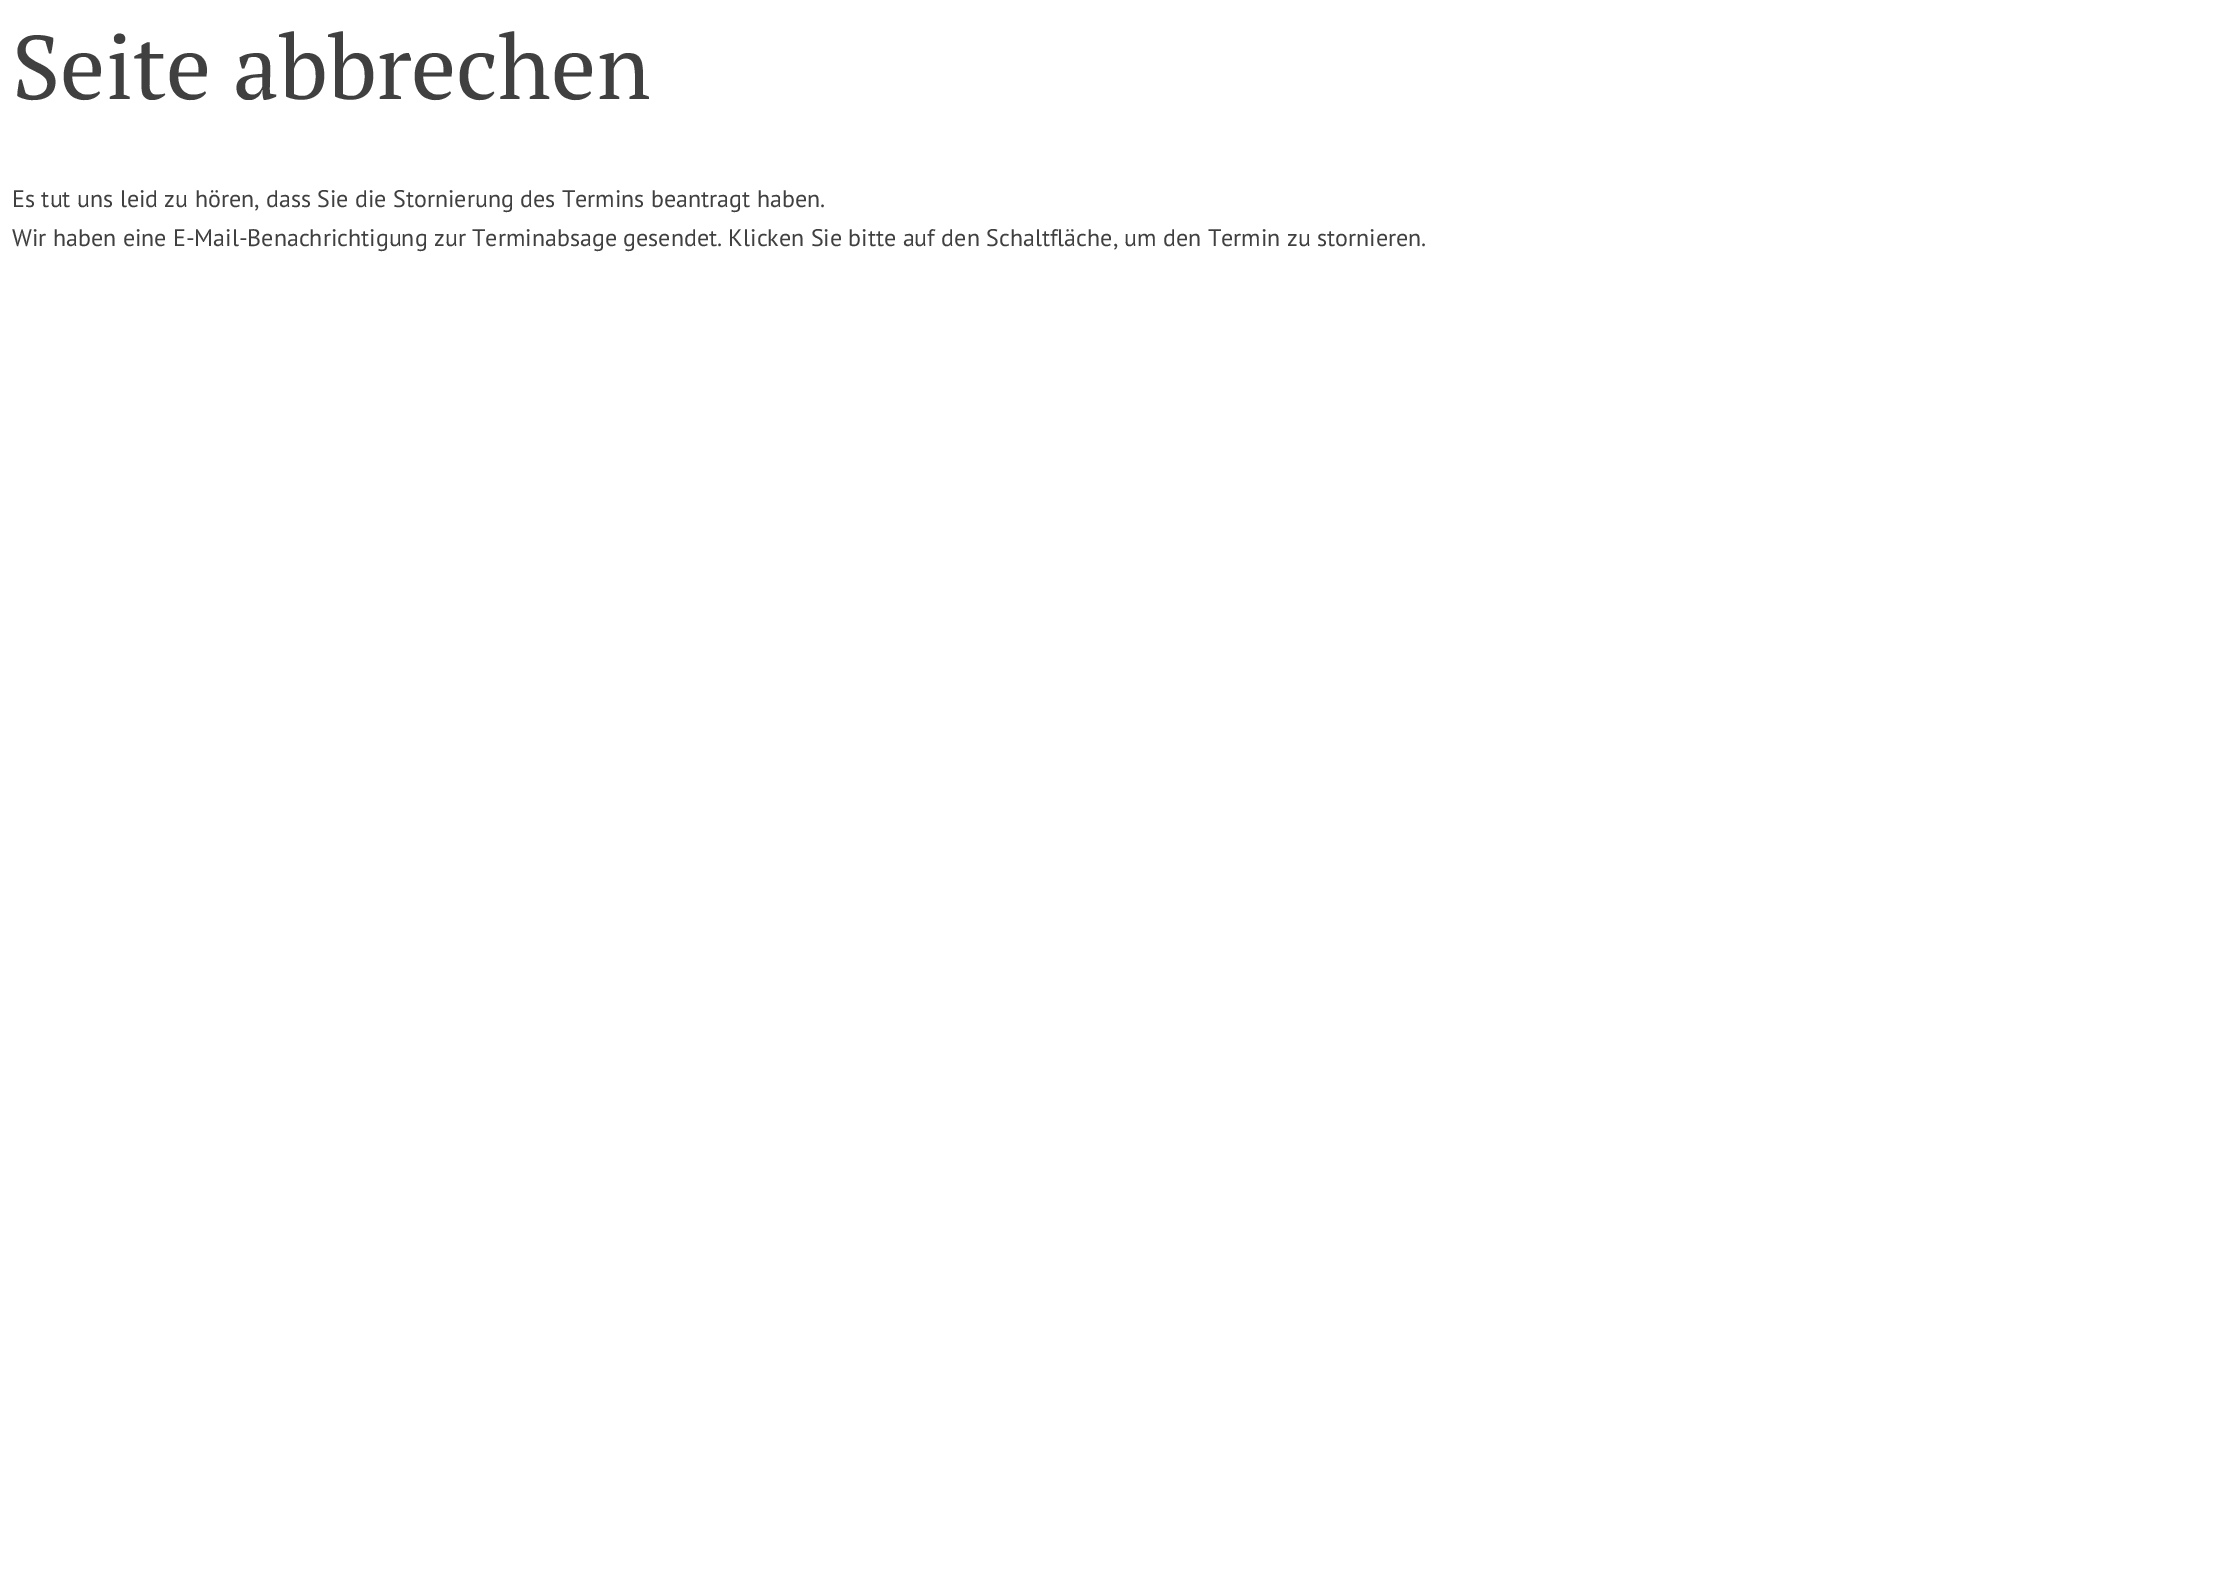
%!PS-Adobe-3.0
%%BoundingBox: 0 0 2220 1582
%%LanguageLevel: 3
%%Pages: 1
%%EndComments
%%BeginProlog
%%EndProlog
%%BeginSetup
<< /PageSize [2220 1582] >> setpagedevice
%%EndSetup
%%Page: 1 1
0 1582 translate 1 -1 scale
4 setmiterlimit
1 setgray
0 0 2220 1582 rectfill
/PTSerif-Regular [90 0 0 -90 0 0] selectfont
0.251 setgray
12 99 moveto (Seite abbrechen) show
/PTSans-Regular [24 0 0 -24 0 0] selectfont
12 207 moveto (Es tut uns leid zu hören, dass Sie die Stornierung des Termins beantragt haben.) show
12 246 moveto (Wir haben eine E-Mail-Benachrichtigung zur Terminabsage gesendet. Klicken Sie bitte auf den Schaltfläche, um den Termin zu stornieren.) show
showpage
%%EOF
